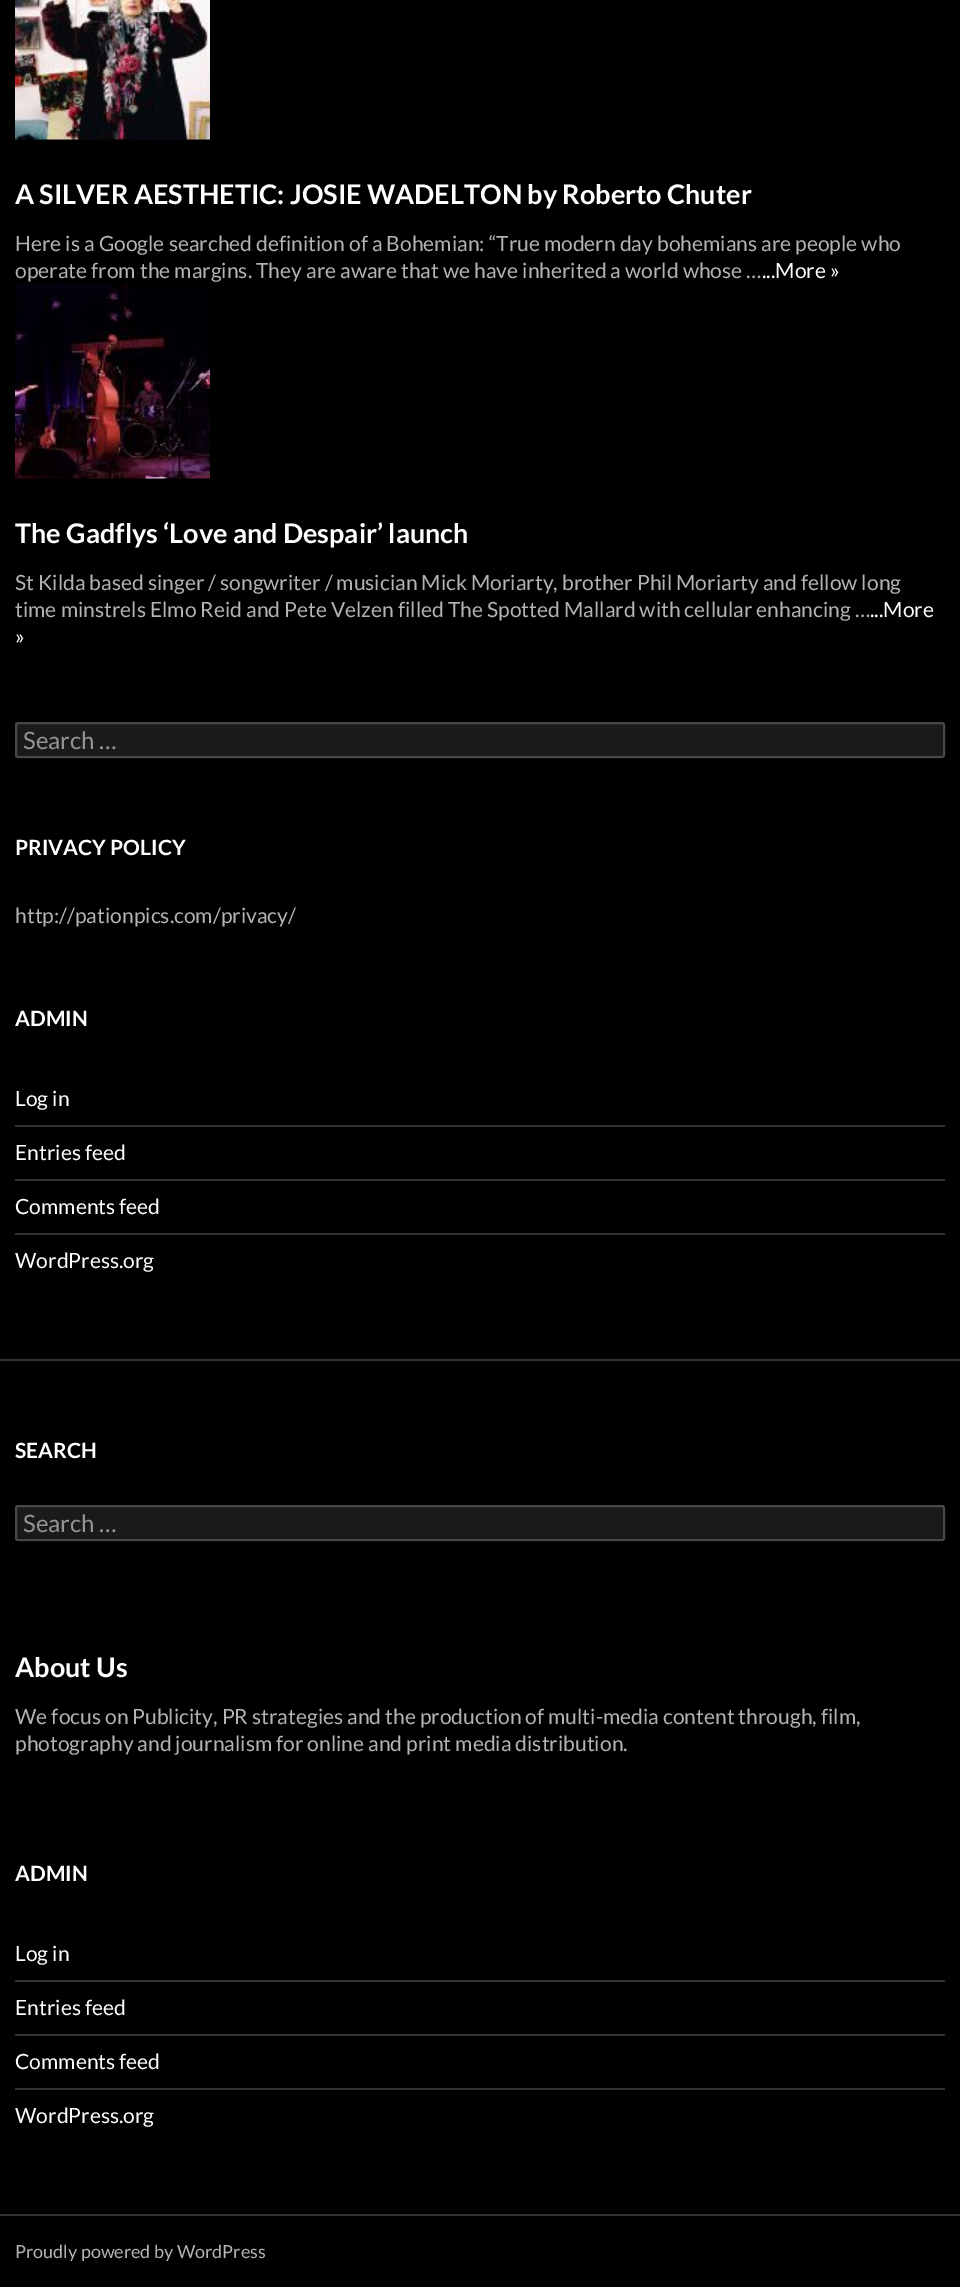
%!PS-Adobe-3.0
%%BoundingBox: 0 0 960 2287
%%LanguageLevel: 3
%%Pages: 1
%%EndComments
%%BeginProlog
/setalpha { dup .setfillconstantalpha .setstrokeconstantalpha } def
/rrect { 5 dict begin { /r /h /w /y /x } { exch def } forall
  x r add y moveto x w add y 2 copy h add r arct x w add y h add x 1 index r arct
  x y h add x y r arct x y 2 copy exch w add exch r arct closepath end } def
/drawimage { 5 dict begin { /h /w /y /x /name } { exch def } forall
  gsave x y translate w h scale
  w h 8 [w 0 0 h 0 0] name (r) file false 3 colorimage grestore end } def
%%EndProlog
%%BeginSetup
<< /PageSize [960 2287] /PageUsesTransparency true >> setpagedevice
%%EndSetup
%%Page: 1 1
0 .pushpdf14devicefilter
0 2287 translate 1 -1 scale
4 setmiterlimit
0 setgray
0 0 960 2287 rectfill
0.2 setgray
0 1359 960 2 rectfill
(images/1.raw) 15 0 195 140 drawimage
(images/2.raw) 15 283 195 196 drawimage
0.102 setgray
15 722 930 36 3 rrect fill
0.2 setalpha
1 setgray
2 setlinewidth
16 723 928 34 2 rrect stroke
1 setalpha
0.2 setgray
15 1125 930 2 rectfill
15 1179 930 2 rectfill
15 1233 930 2 rectfill
0.102 setgray
15 1505 930 36 3 rrect fill
0.2 setalpha
1 setgray
16 1506 928 34 2 rrect stroke
1 setalpha
0.2 setgray
15 1980 930 2 rectfill
15 2034 930 2 rectfill
15 2088 930 2 rectfill
0 2214 960 2 rectfill
/Lato-Bold [27 0 0 -27 0 0] selectfont
1 setgray
15 204 moveto (A SILVER AESTHETIC: JOSIE WADELTON by Roberto Chuter) show
/Lato-Regular [21 0 0 -21 0 0] selectfont
0.702 setgray
15 251 moveto (Here is a Google searched definition of a Bohemian: “True modern day bohemians are people who) show
15 278 moveto (operate from the margins. They are aware that we have inherited a world whose …) show
1 setgray
762 278 moveto (...More ») show
/Lato-Bold [27 0 0 -27 0 0] selectfont
15 543 moveto (The Gadflys ‘Love and Despair’ launch) show
/Lato-Regular [21 0 0 -21 0 0] selectfont
0.702 setgray
15 590 moveto (St Kilda based singer / songwriter / musician Mick Moriarty, brother Phil Moriarty and fellow long) show
15 617 moveto (time minstrels Elmo Reid and Pete Velzen filled The Spotted Mallard with cellular enhancing …) show
1 setgray
870 617 moveto (...More) show
15 644 moveto (») show
/Lato-Regular [24 0 0 -24 0 0] selectfont
0.576 setgray
23 749 moveto (Search …) show
/Lato-Bold [21 0 0 -21 0 0] selectfont
1 setgray
15 855 moveto (PRIVACY POLICY) show
/Lato-Regular [21 0 0 -21 0 0] selectfont
0.702 setgray
15 923 moveto (http://pationpics.com/privacy/) show
/Lato-Bold [21 0 0 -21 0 0] selectfont
1 setgray
15 1026 moveto (ADMIN) show
/Lato-Regular [21 0 0 -21 0 0] selectfont
15 1106 moveto (Log in) show
15 1160 moveto (Entries feed) show
15 1214 moveto (Comments feed) show
15 1268 moveto (WordPress.org) show
/Lato-Bold [21 0 0 -21 0 0] selectfont
15 1458 moveto (SEARCH) show
/Lato-Regular [24 0 0 -24 0 0] selectfont
0.576 setgray
23 1532 moveto (Search …) show
/Lato-Bold [27 0 0 -27 0 0] selectfont
1 setgray
15 1677 moveto (About Us) show
/Lato-Regular [21 0 0 -21 0 0] selectfont
0.702 setgray
15 1724 moveto (We focus on Publicity, PR strategies and the production of multi-media content through, film,) show
15 1751 moveto (photography and journalism for online and print media distribution.) show
/Lato-Bold [21 0 0 -21 0 0] selectfont
1 setgray
15 1881 moveto (ADMIN) show
/Lato-Regular [21 0 0 -21 0 0] selectfont
15 1961 moveto (Log in) show
15 2015 moveto (Entries feed) show
15 2069 moveto (Comments feed) show
15 2123 moveto (WordPress.org) show
/Lato-Regular [18 0 0 -18 0 0] selectfont
0.702 setgray
15 2258 moveto (Proudly powered by WordPress) show
.poppdf14devicefilter showpage
%%EOF
